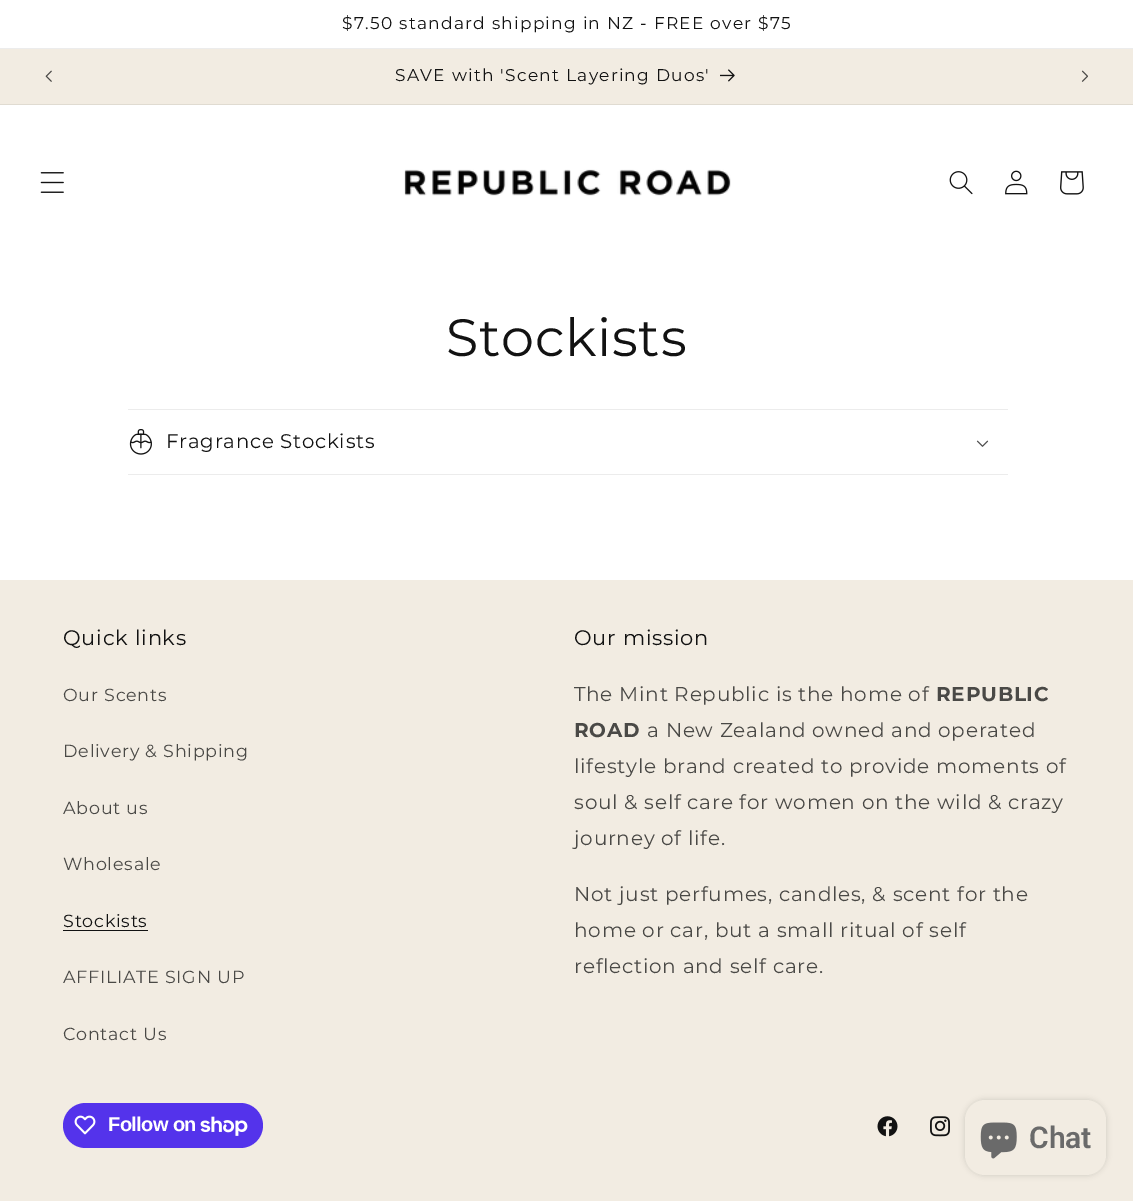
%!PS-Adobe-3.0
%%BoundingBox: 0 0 1133 1201
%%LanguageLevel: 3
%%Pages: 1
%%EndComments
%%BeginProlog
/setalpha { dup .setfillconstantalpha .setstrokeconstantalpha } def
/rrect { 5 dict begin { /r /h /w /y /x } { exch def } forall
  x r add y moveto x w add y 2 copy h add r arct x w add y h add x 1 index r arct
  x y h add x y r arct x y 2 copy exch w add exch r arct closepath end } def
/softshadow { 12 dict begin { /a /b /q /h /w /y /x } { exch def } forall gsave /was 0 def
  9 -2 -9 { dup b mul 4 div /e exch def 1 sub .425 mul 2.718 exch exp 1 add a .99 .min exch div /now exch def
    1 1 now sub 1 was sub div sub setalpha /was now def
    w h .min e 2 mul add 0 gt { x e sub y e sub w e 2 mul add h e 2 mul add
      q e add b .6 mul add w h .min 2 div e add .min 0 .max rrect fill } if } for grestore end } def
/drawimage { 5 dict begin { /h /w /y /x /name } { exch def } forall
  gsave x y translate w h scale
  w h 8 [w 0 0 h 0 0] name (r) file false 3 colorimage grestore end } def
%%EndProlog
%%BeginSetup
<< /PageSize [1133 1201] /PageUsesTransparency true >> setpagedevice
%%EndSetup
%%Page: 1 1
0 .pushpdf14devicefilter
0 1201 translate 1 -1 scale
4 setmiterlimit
1 setgray
0 0 1133 1201 rectfill
0.925 setgray
0 48 1133 1 rectfill
0.949 0.925 0.886 setrgbcolor
0 49 1133 55 rectfill
0.878 0.859 0.82 setrgbcolor
0 104 1133 1 rectfill
(images/1.raw) 45 70 7 12 drawimage
(images/2.raw) 720 69 15 13 drawimage
(images/3.raw) 1081 70 7 12 drawimage
(images/4.raw) 40 172 24 21 drawimage
(images/5.raw) 404 169 327 27 drawimage
(images/6.raw) 949 171 24 24 drawimage
(images/7.raw) 1005 170 23 25 drawimage
(images/8.raw) 1060 171 24 24 drawimage
0.925 setgray
128 409 880 1 rectfill
128 474 880 1 rectfill
(images/9.raw) 129 429 23 26 drawimage
(images/10.raw) 976 440 13 7 drawimage
0.949 0.925 0.886 setrgbcolor
0 580 1133 621 rectfill
0.071 setgray
63 930 85 1 rectfill
0.329 0.2 0.922 setrgbcolor
63 1103 200 45 22.5 rrect fill
(images/11.raw) 74 1115 22 20 drawimage
(images/12.raw) 200 1116 48 20 drawimage
(images/13.raw) 877 1116 21 21 drawimage
(images/14.raw) 930 1116 20 21 drawimage
0 setgray
965 1100 141 75 20 3 0.15 softshadow
0.949 0.925 0.886 setrgbcolor
965 1100 141 75 20 rrect fill
(images/15.raw) 980 1122 37 37 drawimage
/Montserrat-Thin [17.05 0 0 -17.05 0 0] selectfont
0.071 setgray
342 29 moveto 1.25 0 ($7.50 standard shipping in NZ - FREE over $75) ashow
395 81 moveto 1.25 0 (SAVE with 'Scent Layering Duos') ashow
/Montserrat-Thin [52.5 0 0 -52.5 0 0] selectfont
446 356 moveto 0.75 0 (Stockists) ashow
/Montserrat-Thin [19.75 0 0 -19.75 0 0] selectfont
166 448 moveto 0.75 0 (Fragrance Stockists) ashow
/Montserrat-Thin [21 0 0 -21 0 0] selectfont
63 645 moveto 0.75 0 (Quick links) ashow
/Montserrat-Thin [17.5 0 0 -17.5 0 0] selectfont
0.29 0.286 0.275 setrgbcolor
63 701 moveto 0.75 0 (Our Scents) ashow
63 757 moveto 0.75 0 (Delivery & Shipping) ashow
63 814 moveto 0.75 0 (About us) ashow
63 870 moveto 0.75 0 (Wholesale) ashow
0.071 setgray
63 927 moveto 0.75 0 (Stockists) ashow
0.29 0.286 0.275 setrgbcolor
63 983 moveto 0.75 0 (AFFILIATE SIGN UP) ashow
63 1040 moveto 0.75 0 (Contact Us) ashow
/Montserrat-Thin [21 0 0 -21 0 0] selectfont
0.071 setgray
574 645 moveto 0.75 0 (Our mission) ashow
/Montserrat-Thin [20 0 0 -20 0 0] selectfont
0.29 0.286 0.275 setrgbcolor
574 701 moveto 0.75 0 (The Mint Republic is the home of) ashow
/Montserrat-Bold [20 0 0 -20 0 0] selectfont
936 701 moveto 0.75 0 (REPUBLIC) ashow
574 737 moveto 0.75 0 (ROAD) ashow
/Montserrat-Thin [20 0 0 -20 0 0] selectfont
647 737 moveto 0.75 0 (a New Zealand owned and operated) ashow
574 773 moveto 0.75 0 (lifestyle brand created to provide moments of) ashow
574 809 moveto 0.75 0 (soul & self care for women on the wild & crazy) ashow
574 845 moveto 0.75 0 (journey of life.) ashow
574 901 moveto 0.75 0 (Not just perfumes, candles, & scent for the) ashow
574 937 moveto 0.75 0 (home or car, but a small ritual of self) ashow
574 973 moveto 0.75 0 (reflection and self care.) ashow
/LiberationSans-Bold [20 0 0 -20 0 0] selectfont
1 setgray
108 1131 moveto -0.6 0 (Follow on) ashow
/Roboto-SemiBold [30 0 0 -30 0 0] selectfont
0.416 setgray
1029 1148 moveto (Chat) show
.poppdf14devicefilter showpage
%%EOF
